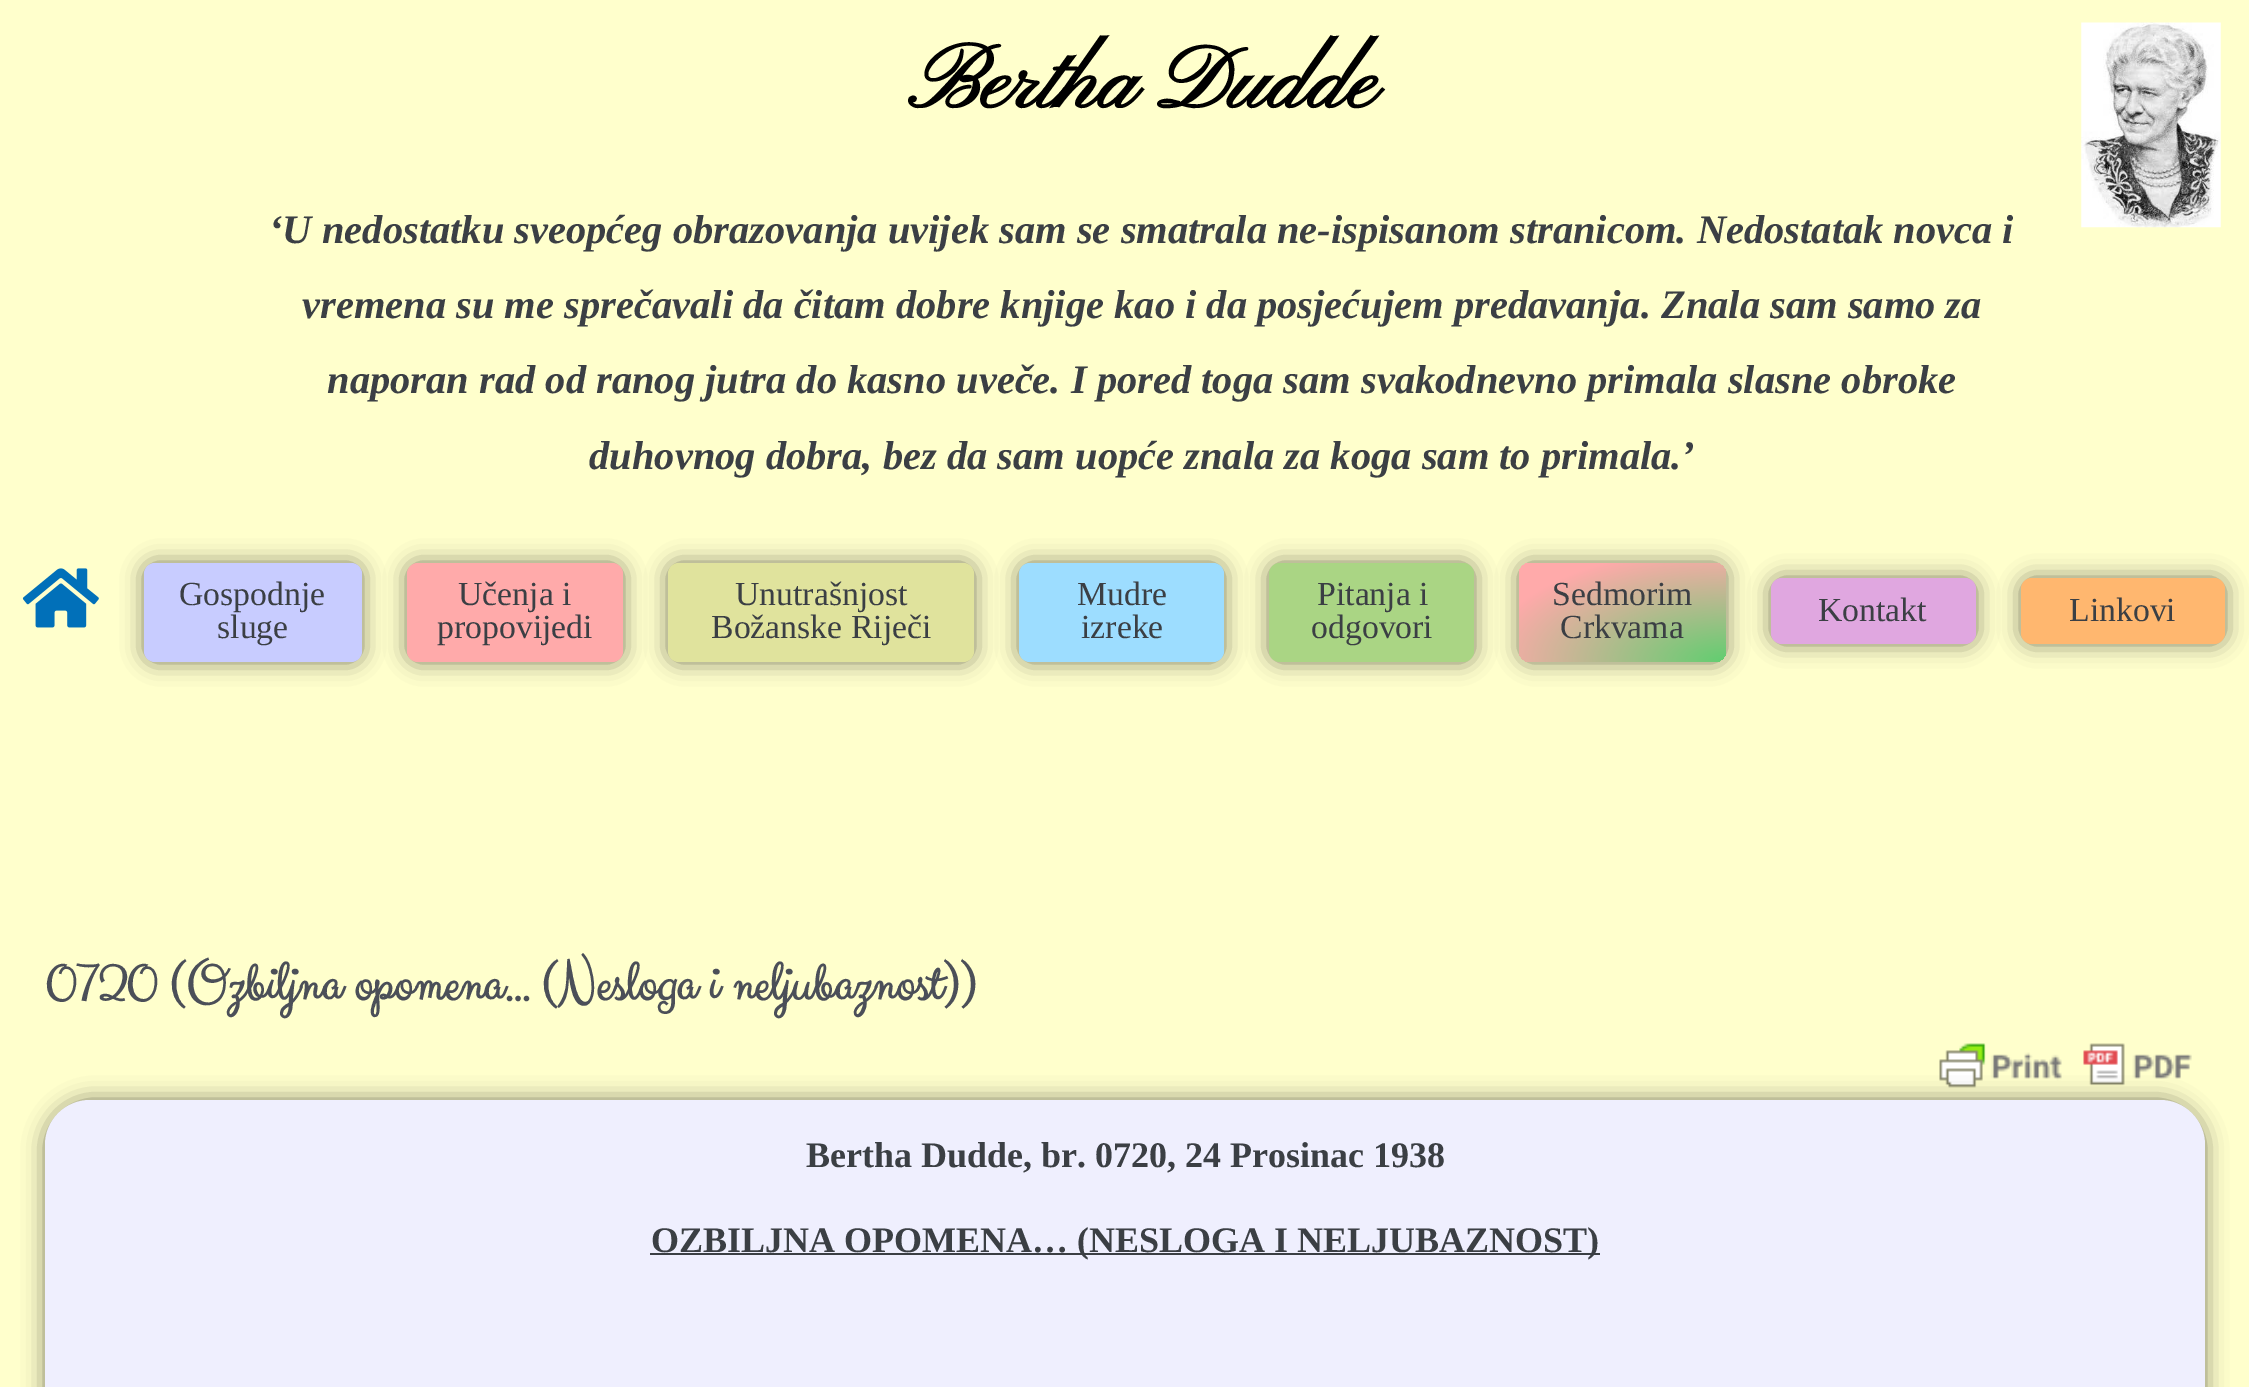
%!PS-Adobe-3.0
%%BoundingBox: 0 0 2249 1387
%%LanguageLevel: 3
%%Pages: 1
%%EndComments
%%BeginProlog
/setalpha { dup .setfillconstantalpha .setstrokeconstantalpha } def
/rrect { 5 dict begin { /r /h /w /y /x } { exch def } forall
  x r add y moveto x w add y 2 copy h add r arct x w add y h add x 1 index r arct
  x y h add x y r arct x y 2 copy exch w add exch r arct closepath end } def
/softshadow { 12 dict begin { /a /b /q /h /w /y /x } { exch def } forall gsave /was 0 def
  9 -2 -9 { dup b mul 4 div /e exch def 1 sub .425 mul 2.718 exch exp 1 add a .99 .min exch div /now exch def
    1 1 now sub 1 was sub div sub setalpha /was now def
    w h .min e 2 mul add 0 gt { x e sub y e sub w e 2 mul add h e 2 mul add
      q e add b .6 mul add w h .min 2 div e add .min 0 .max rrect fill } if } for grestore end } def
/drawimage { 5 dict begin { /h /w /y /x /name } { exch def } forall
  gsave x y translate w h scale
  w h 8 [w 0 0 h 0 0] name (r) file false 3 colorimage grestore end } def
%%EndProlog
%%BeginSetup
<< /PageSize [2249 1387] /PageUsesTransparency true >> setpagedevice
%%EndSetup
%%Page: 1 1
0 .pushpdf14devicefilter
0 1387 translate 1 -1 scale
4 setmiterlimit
1 1 0.8 setrgbcolor
0 0 2249 1387 rectfill
(images/1.raw) 2081 22 140 206 drawimage
(images/2.raw) 22 568 77 60 drawimage
0 setgray
144 563 218 99 11 11 0.5 softshadow
0.784 0.8 1 setrgbcolor
144 563 218 99 11 rrect fill
0 setgray
407 563 216 99 11 11 0.5 softshadow
1 0.667 0.667 setrgbcolor
407 563 216 99 11 rrect fill
0 setgray
668 563 306 99 11 11 0.5 softshadow
0.878 0.89 0.616 setrgbcolor
668 563 306 99 11 rrect fill
0 setgray
1019 563 205 99 11 11 0.5 softshadow
0.616 0.867 1 setrgbcolor
1019 563 205 99 11 rrect fill
0 setgray
1269 563 205 99 11 11 0.5 softshadow
0.667 0.835 0.518 setrgbcolor
1269 563 205 99 11 rrect fill
0 setgray
1519 563 207 99 11 11 0.5 softshadow
gsave 1519 563 207 99 11 rrect clip newpath 1726 662 translate 293 140 scale
<< /ShadingType 3 /ColorSpace /DeviceRGB /Coords [0 0 0 0 0 1] /Extend [true true] /Function << /FunctionType 3 /Domain [0 1] /Functions [<< /FunctionType 2 /Domain [0 1] /C0 [0.38 0.808 0.439] /C1 [1 0.667 0.667] /N 1 >> << /FunctionType 2 /Domain [0 1] /C0 [1 0.667 0.667] /C1 [1 0.667 0.667] /N 1 >>] /Bounds [0.82] /Encode [0 1 0 1] >> >> shfill grestore
1771 578 205 66 11 11 0.5 softshadow
0.878 0.655 0.878 setrgbcolor
1771 578 205 66 11 rrect fill
0 setgray
2021 578 204 66 11 11 0.5 softshadow
1 0.718 0.435 setrgbcolor
2021 578 204 66 11 rrect fill
(images/3.raw) 1939 1043 253 45 drawimage
0 setgray
45 1100 2160 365 45 11 0.5 softshadow
0.937 0.937 0.996 setrgbcolor
45 1100 2160 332 45 rrect fill
0.231 0.247 0.267 setrgbcolor
650 1253 950 2 rectfill
/PinyonScript-Bold [90 0 0 -90 0 0] selectfont
0 setgray
908 108 moveto (Bertha Dudde) show
/LiberationSerif-BoldItalic [40.5 0 0 -40.5 0 0] selectfont
0.231 0.247 0.267 setrgbcolor
269 243 moveto (‘U nedostatku sveopćeg obrazovanja uvijek sam se smatrala ne-ispisanom stranicom. Nedostatak novca i) show
302 318 moveto (vremena su me sprečavali da čitam dobre knjige kao i da posjećujem predavanja. Znala sam samo za) show
327 393 moveto (naporan rad od ranog jutra do kasno uveče. I pored toga sam svakodnevno primala slasne obroke) show
589 469 moveto (duhovnog dobra, bez da sam uopće znala za koga sam to primala.’) show
/LiberationSerif-Regular [33.75 0 0 -33.75 0 0] selectfont
179 605 moveto (Gospodnje) show
217 638 moveto (sluge) show
458 605 moveto (Učenja i) show
437 638 moveto (propovijedi) show
735 605 moveto (Unutrašnjost) show
711 638 moveto (Božanske Riječi) show
1077 605 moveto (Mudre) show
1081 638 moveto (izreke) show
1317 605 moveto (Pitanja i) show
1311 638 moveto (odgovori) show
1552 605 moveto (Sedmorim) show
1560 638 moveto (Crkvama) show
1818 621 moveto (Kontakt) show
2069 621 moveto (Linkovi) show
/ClickerScript-Bold [56.25 0 0 -56.25 0 0] selectfont
0.294 0.31 0.345 setrgbcolor
45 1001 moveto (0720 \(Ozbiljna opomena… \(Nesloga i neljubaznost\)\)) show
/LiberationSerif-Bold [36 0 0 -36 0 0] selectfont
0.231 0.247 0.267 setrgbcolor
806 1167 moveto (Bertha Dudde, br. 0720, 24 Prosinac 1938) show
651 1252 moveto (OZBILJNA OPOMENA… \(NESLOGA I NELJUBAZNOST\)) show
.poppdf14devicefilter showpage
%%EOF
